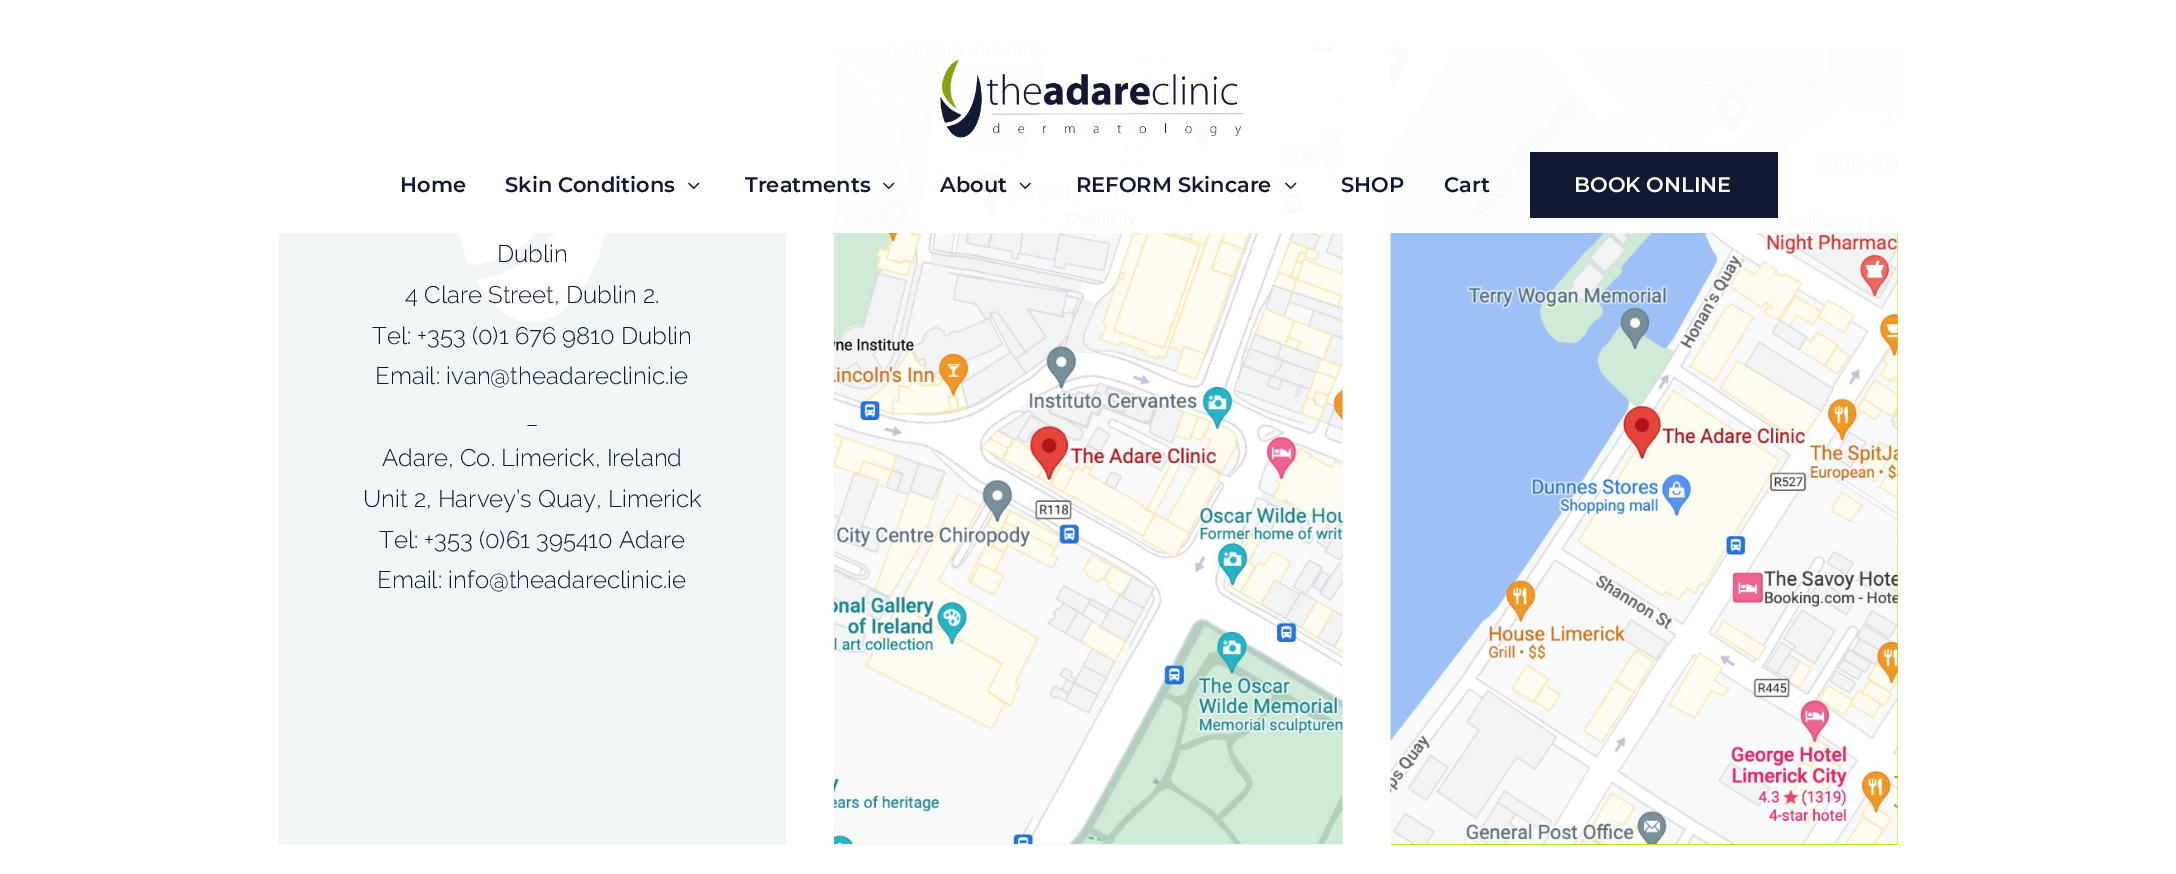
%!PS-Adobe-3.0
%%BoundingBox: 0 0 2176 874
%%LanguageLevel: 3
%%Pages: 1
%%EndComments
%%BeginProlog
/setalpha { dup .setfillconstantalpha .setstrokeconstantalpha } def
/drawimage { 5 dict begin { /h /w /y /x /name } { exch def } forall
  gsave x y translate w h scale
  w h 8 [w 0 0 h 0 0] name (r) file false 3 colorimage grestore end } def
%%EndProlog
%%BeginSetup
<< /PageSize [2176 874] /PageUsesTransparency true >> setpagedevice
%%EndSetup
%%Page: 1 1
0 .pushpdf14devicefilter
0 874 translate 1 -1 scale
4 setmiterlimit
1 setgray
0 0 2176 874 rectfill
0.941 0.961 0.965 setrgbcolor
279 47 507 798 rectfill
(images/6.raw) 452 47 160 276 drawimage
834 47 509 798 rectfill
(images/7.raw) 834 47 509 797 drawimage
0.663 0.929 0 setrgbcolor
1391 47 507 798 rectfill
(images/8.raw) 1390 47 508 797 drawimage
0.97 setalpha
1 setgray
279 47 1619 186 rectfill
1 setalpha
(images/1.raw) 940 60 304 78 drawimage
(images/2.raw) 688 182 12 7 drawimage
(images/3.raw) 883 182 12 7 drawimage
(images/4.raw) 1019 182 12 7 drawimage
(images/5.raw) 1285 182 12 7 drawimage
0.067 0.102 0.188 setrgbcolor
1530 152 248 66 rectfill
/Montserrat-SemiBold [21 0 0 -21 0 0] selectfont
400 192 moveto (Home) show
505 192 moveto (Skin Conditions) show
745 192 moveto (Treatments) show
940 192 moveto (About) show
1076 192 moveto (REFORM Skincare) show
1341 192 moveto (SHOP) show
1444 192 moveto (Cart) show
1 setgray
1574 192 moveto (BOOK ONLINE) show
/Raleway-Light [24 0 0 -24 0 0] selectfont
0.067 0.102 0.188 setrgbcolor
497 262 moveto (Dublin) show
405 303 moveto (4 Clare Street, Dublin 2.) show
372 344 moveto (Tel: +353 \(0\)1 676 9810 Dublin) show
375 384 moveto (Email: ivan@theadareclinic.ie) show
526 425 moveto (_) show
382 466 moveto (Adare, Co. Limerick, Ireland) show
363 507 moveto (Unit 2, Harvey’s Quay, Limerick) show
379 548 moveto (Tel: +353 \(0\)61 395410 Adare) show
377 588 moveto (Email: info@theadareclinic.ie) show
.poppdf14devicefilter showpage
%%EOF
